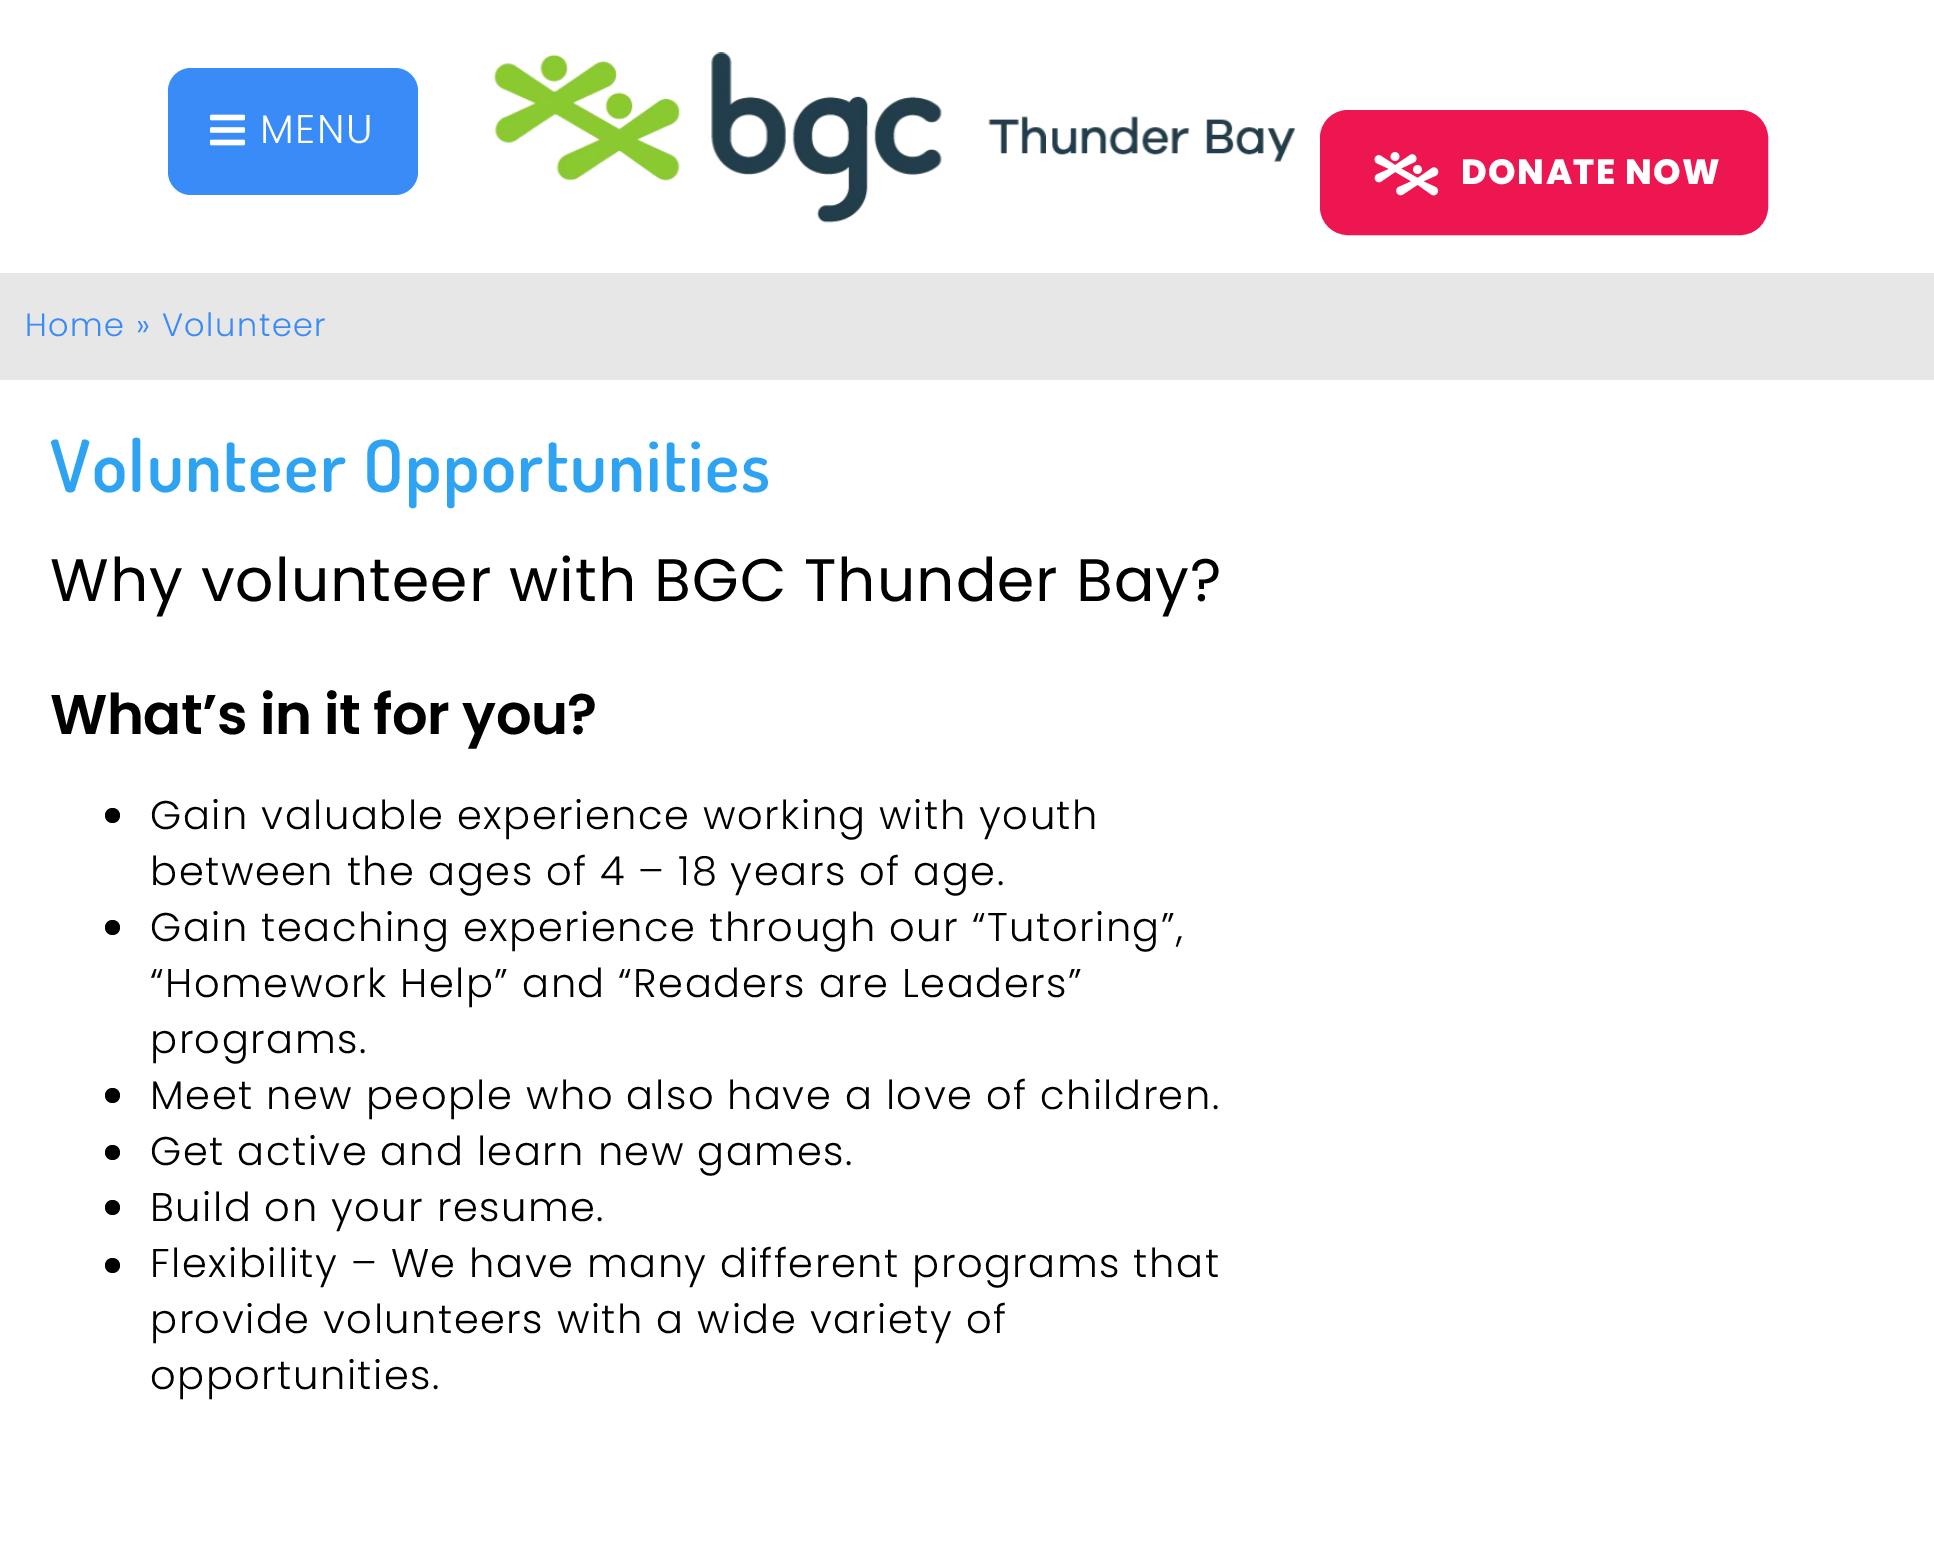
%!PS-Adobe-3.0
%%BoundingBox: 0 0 1934 1545
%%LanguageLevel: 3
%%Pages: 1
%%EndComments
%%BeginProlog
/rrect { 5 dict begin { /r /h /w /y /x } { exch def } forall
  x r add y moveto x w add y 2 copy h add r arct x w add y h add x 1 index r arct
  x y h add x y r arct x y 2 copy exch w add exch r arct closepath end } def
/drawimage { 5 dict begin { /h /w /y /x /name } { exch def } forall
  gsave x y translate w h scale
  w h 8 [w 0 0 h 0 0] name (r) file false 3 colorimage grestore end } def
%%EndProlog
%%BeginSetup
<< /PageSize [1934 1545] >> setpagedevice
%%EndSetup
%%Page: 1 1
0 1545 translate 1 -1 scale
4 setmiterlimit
1 setgray
0 0 1934 1545 rectfill
0.224 0.545 0.969 setrgbcolor
168 68 250 127 23 rrect fill
(images/1.raw) 210 114 35 32 drawimage
(images/2.raw) 494 52 801 171 drawimage
0.929 0.086 0.318 setrgbcolor
1322.5 112.5 443 120 25.5 rrect gsave fill grestore
5 setlinewidth
stroke
(images/3.raw) 1374 152 65 44 drawimage
0.906 setgray
0 273 1934 107 rectfill
0 setgray
newpath 112.5 815.5 7.5 0 360 arc closepath fill
newpath 112.5 927.5 7.5 0 360 arc closepath fill
newpath 112.5 1095.5 7.5 0 360 arc closepath fill
newpath 112.5 1152.5 7.5 0 360 arc closepath fill
newpath 112.5 1207.5 7.5 0 360 arc closepath fill
newpath 112.5 1265.5 7.5 0 360 arc closepath fill
/Poppins-Light [40 0 0 -40 0 0] selectfont
1 setgray
260 143 moveto 1.5 0 (MENU) ashow
/Poppins-ExtraBold [35 0 0 -35 0 0] selectfont
1461 184 moveto 1.5 0 (DONATE NOW) ashow
/Poppins-Light [32 0 0 -32 0 0] selectfont
0.224 0.545 0.969 setrgbcolor
25 336 moveto 1.5 0 (Home » Volunteer) ashow
/Dosis-SemiBold [72 0 0 -72 0 0] selectfont
0.18 0.639 0.949 setrgbcolor
50 492 moveto 1.5 0 (Volunteer Opportunities) ashow
/Poppins-Regular [60 0 0 -60 0 0] selectfont
0 setgray
50 601 moveto 1 0 (Why volunteer with BGC Thunder Bay?) ashow
/Poppins-SemiBold [56 0 0 -56 0 0] selectfont
50 734 moveto -0.5 0 (What’s in it for you?) ashow
/Poppins-Light [40 0 0 -40 0 0] selectfont
150 829 moveto 1.5 0 (Gain valuable experience working with youth) ashow
150 885 moveto 1.5 0 (between the ages of 4 – 18 years of age.) ashow
150 941 moveto 1.5 0 (Gain teaching experience through our “Tutoring”,) ashow
150 997 moveto 1.5 0 (“Homework Help” and “Readers are Leaders”) ashow
150 1053 moveto 1.5 0 (programs.) ashow
150 1109 moveto 1.5 0 (Meet new people who also have a love of children.) ashow
150 1165 moveto 1.5 0 (Get active and learn new games.) ashow
150 1221 moveto 1.5 0 (Build on your resume.) ashow
150 1277 moveto 1.5 0 (Flexibility – We have many different programs that) ashow
150 1333 moveto 1.5 0 (provide volunteers with a wide variety of) ashow
150 1389 moveto 1.5 0 (opportunities.) ashow
showpage
%%EOF
